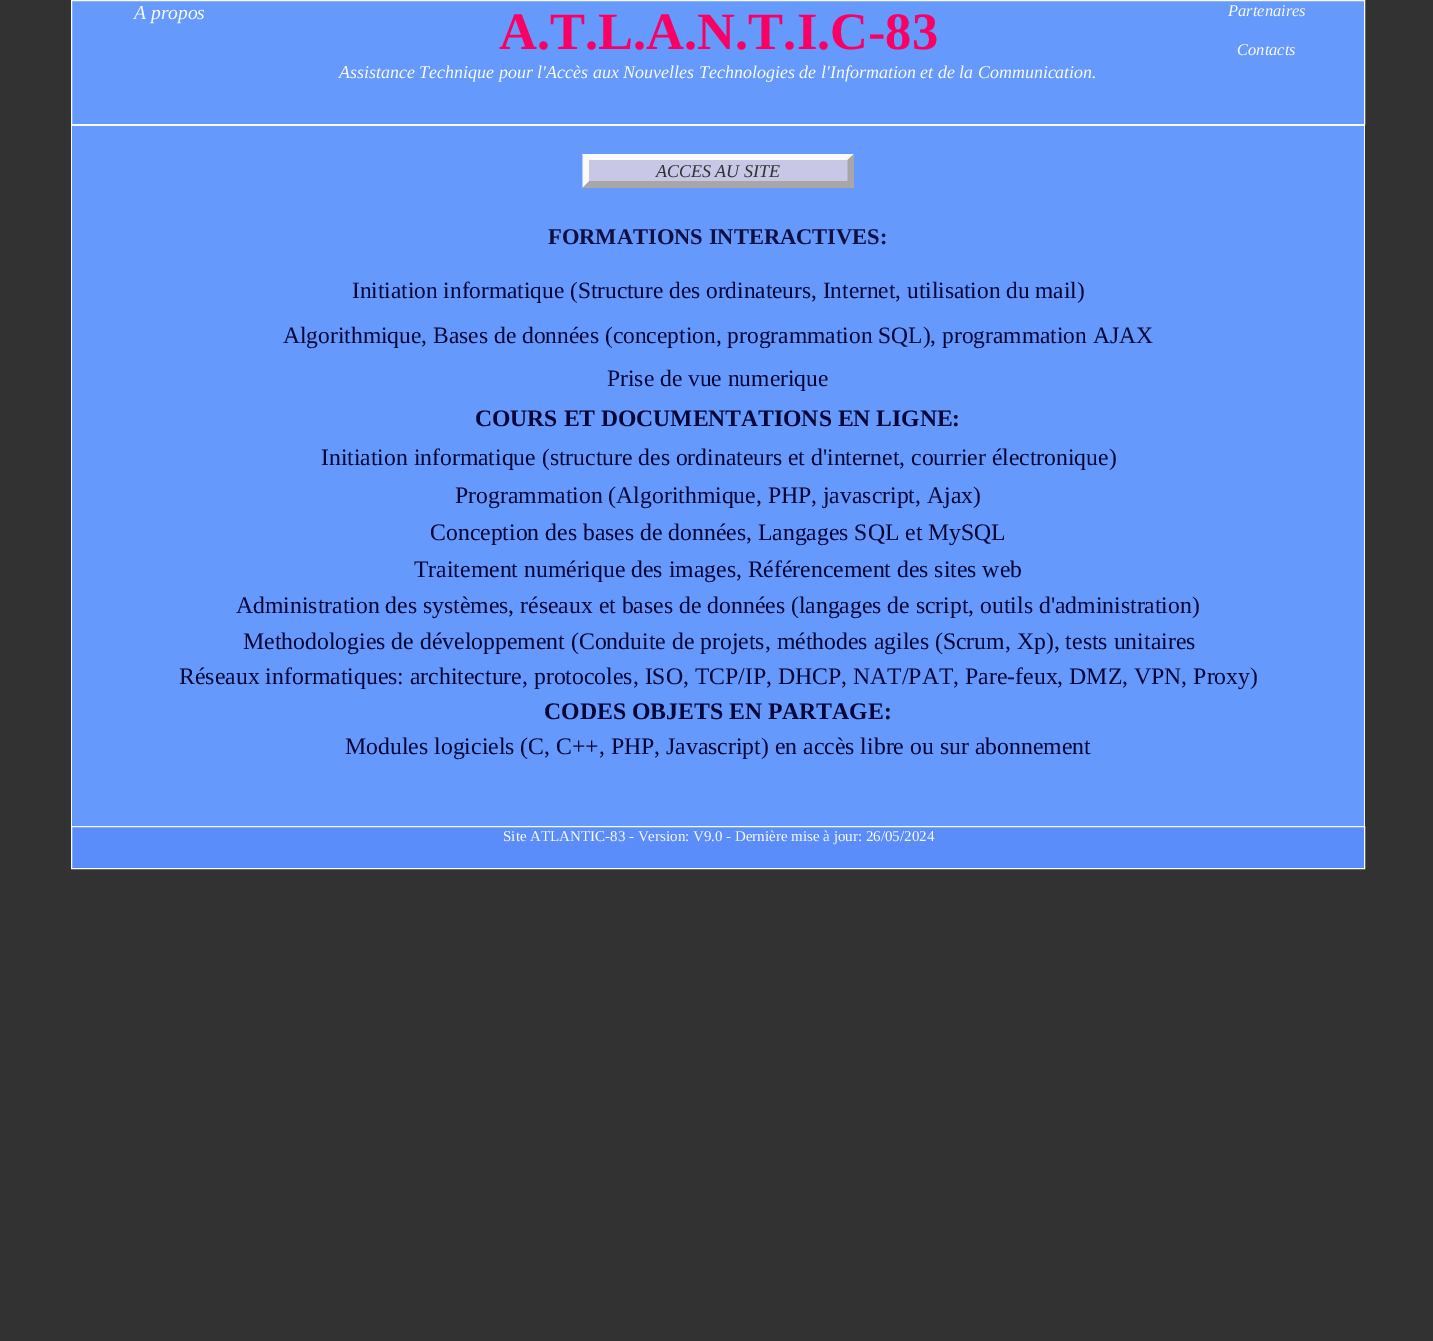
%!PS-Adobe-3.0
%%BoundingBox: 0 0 1433 1341
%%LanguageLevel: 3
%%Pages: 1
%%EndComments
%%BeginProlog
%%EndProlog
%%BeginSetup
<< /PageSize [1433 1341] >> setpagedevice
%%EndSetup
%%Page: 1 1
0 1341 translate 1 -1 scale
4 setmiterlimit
0.196 setgray
0 0 1433 1341 rectfill
0.396 0.6 0.988 setrgbcolor
newpath 71.5 0.5 moveto 1364.5 0.5 lineto 1364.5 124.5 lineto 71.5 124.5 lineto closepath gsave fill grestore
0.98 setgray
stroke
0.396 0.6 0.988 setrgbcolor
72 126 1292 700 rectfill
0.98 setgray
71 125 1294 1 rectfill
1364 125 1 701 rectfill
71 125 1 701 rectfill
0.784 0.784 0.902 setrgbcolor
583 154 271 34 rectfill
0.98 setgray
newpath 582 154 moveto 854 154 lineto 848 160 lineto 589 160 lineto closepath fill
0.655 setgray
newpath 854 154 moveto 854 187.5 lineto 847.5 181 lineto 847.5 160 lineto closepath fill
newpath 854 188 moveto 582 188 lineto 589 181 lineto 848 181 lineto closepath fill
0.98 setgray
newpath 582.5 187.5 moveto 582.5 154 lineto 589 160 lineto 589 181 lineto closepath fill
0.353 0.549 0.98 setrgbcolor
newpath 71.5 826.5 moveto 1364.5 826.5 lineto 1364.5 868.5 lineto 71.5 868.5 lineto closepath gsave fill grestore
0.98 setgray
stroke
/LiberationSerif-Italic [19.5 0 0 -19.5 0 0] selectfont
134 19 moveto (A propos) show
/LiberationSerif-Bold [52.5 0 0 -52.5 0 0] selectfont
0.98 0 0.392 setrgbcolor
499 49 moveto (A.T.L.A.N.T.I.C-83) show
/LiberationSerif-Italic [18 0 0 -18 0 0] selectfont
0.98 setgray
339 78 moveto (Assistance Technique pour l'Accès aux Nouvelles Technologies de l'Information et de la Communication.) show
/LiberationSerif-Italic [16.5 0 0 -16.5 0 0] selectfont
1228 16 moveto (Partenaires) show
1237 55 moveto (Contacts) show
/LiberationSerif-Italic [18 0 0 -18 0 0] selectfont
0.196 setgray
656 177 moveto (ACCES AU SITE) show
/LiberationSerif-Bold [22.5 0 0 -22.5 0 0] selectfont
0.059 0.059 0.255 setrgbcolor
548 244 moveto (FORMATIONS INTERACTIVES:) show
/LiberationSerif-Regular [23.35 0 0 -23.35 0 0] selectfont
0.024 0.024 0.22 setrgbcolor
352 298 moveto (Initiation informatique \(Structure des ordinateurs, Internet, utilisation du mail\)) show
/LiberationSerif-Regular [23.5 0 0 -23.5 0 0] selectfont
283 343 moveto (Algorithmique, Bases de données \(conception, programmation SQL\), programmation AJAX) show
607 386 moveto (Prise de vue numerique) show
/LiberationSerif-Bold [23.6 0 0 -23.6 0 0] selectfont
475 426 moveto (COURS ET DOCUMENTATIONS EN LIGNE:) show
/LiberationSerif-Regular [23.65 0 0 -23.65 0 0] selectfont
321 465 moveto (Initiation informatique \(structure des ordinateurs et d'internet, courrier électronique\)) show
/LiberationSerif-Regular [23.7 0 0 -23.7 0 0] selectfont
455 503 moveto (Programmation \(Algorithmique, PHP, javascript, Ajax\)) show
430 540 moveto (Conception des bases de données, Langages SQL et MySQL) show
414 577 moveto (Traitement numérique des images, Référencement des sites web) show
236 613 moveto (Administration des systèmes, réseaux et bases de données \(langages de script, outils d'administration\)) show
/LiberationSerif-Regular [23.75 0 0 -23.75 0 0] selectfont
243 649 moveto (Methodologies de développement \(Conduite de projets, méthodes agiles \(Scrum, Xp\), tests unitaires) show
179 684 moveto (Réseaux informatiques: architecture, protocoles, ISO, TCP/IP, DHCP, NAT/PAT, Pare-feux, DMZ, VPN, Proxy\)) show
/LiberationSerif-Bold [23.75 0 0 -23.75 0 0] selectfont
544 719 moveto (CODES OBJETS EN PARTAGE:) show
/LiberationSerif-Regular [23.75 0 0 -23.75 0 0] selectfont
345 754 moveto (Modules logiciels \(C, C++, PHP, Javascript\) en accès libre ou sur abonnement) show
/LiberationSerif-Regular [15 0 0 -15 0 0] selectfont
0.98 setgray
503 841 moveto (Site ATLANTIC-83 - Version: V9.0 - Dernière mise à jour: 26/05/2024) show
showpage
%%EOF
